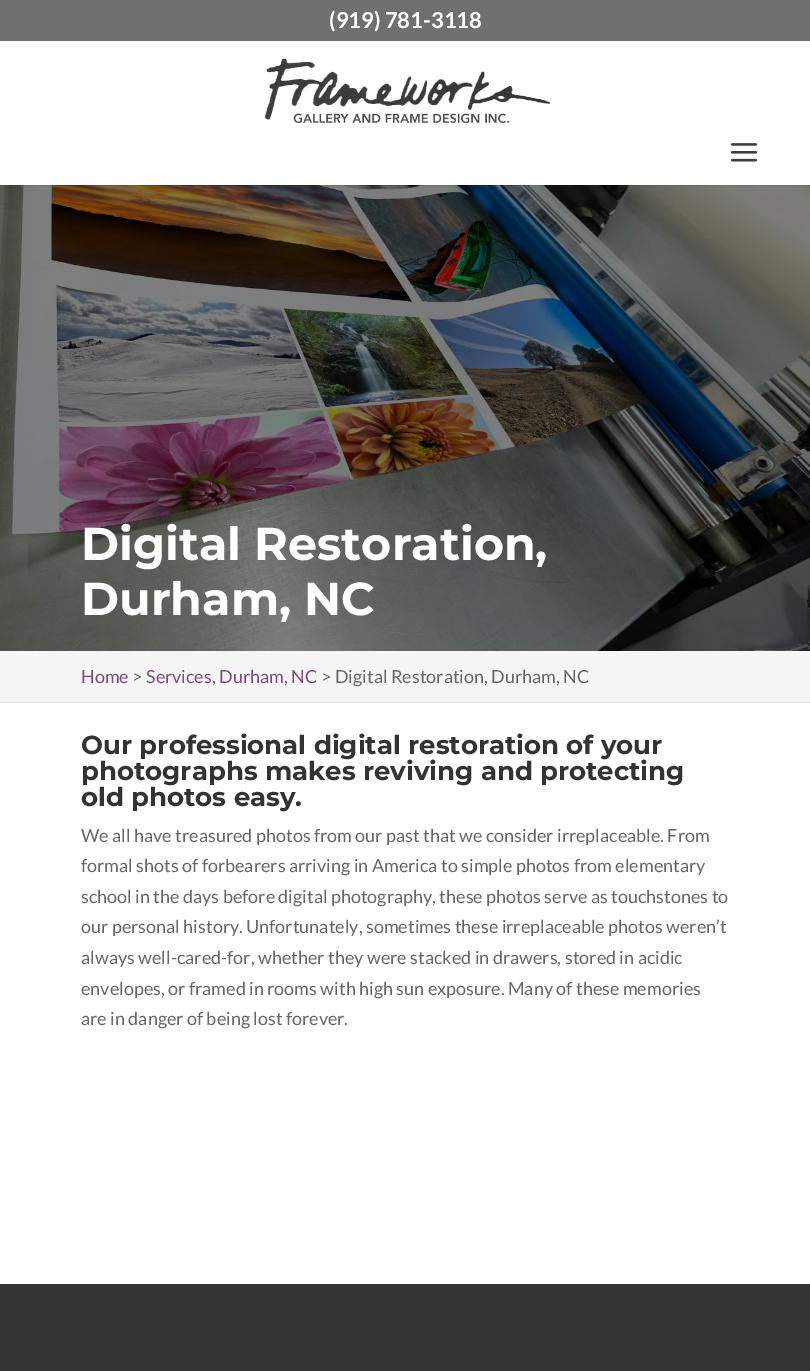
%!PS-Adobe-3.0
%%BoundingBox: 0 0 810 1371
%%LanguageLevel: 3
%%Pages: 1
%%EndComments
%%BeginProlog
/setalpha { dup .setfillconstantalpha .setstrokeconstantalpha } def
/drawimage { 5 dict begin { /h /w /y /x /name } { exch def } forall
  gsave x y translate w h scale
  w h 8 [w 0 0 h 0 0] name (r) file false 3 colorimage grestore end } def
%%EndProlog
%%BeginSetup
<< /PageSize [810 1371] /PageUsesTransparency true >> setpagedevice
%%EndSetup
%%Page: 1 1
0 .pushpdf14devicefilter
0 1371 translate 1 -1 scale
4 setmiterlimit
1 setgray
0 0 810 1371 rectfill
0.439 setgray
0 0 810 41 rectfill
0.2 setgray
0 1284 810 87 rectfill
(images/1.raw) 0 185 810 466 drawimage
0.902 setgray
0 702 810 1 rectfill
0.961 setgray
0 651 810 51 rectfill
0.1 setalpha
0 setgray
0 185 810 1 rectfill
1 setalpha
(images/2.raw) 265 58 285 66 drawimage
(images/3.raw) 730 143 28 19 drawimage
/Lato-Bold [22 0 0 -22 0 0] selectfont
1 setgray
329 28 moveto (\(919\) 781-3118) show
/Montserrat-Bold [46 0 0 -46 0 0] selectfont
81 560 moveto (Digital Restoration,) show
81 615 moveto (Durham, NC) show
/Lato-Regular [18 0 0 -18 0 0] selectfont
0.498 0.286 0.525 setrgbcolor
81 683 moveto (Home) show
0.4 setgray
132 683 moveto (>) show
0.498 0.286 0.525 setrgbcolor
146 683 moveto (Services, Durham, NC) show
0.4 setgray
321 683 moveto (> Digital Restoration, Durham, NC) show
/Montserrat-Bold [26 0 0 -26 0 0] selectfont
0.2 setgray
81 754 moveto (Our professional digital restoration of your) show
81 780 moveto (photographs makes reviving and protecting) show
81 806 moveto (old photos easy.) show
/Lato-Regular [18 0 0 -18 0 0] selectfont
0.4 setgray
81 842 moveto (We all have treasured photos from our past that we consider irreplaceable. From) show
81 872 moveto (formal shots of forbearers arriving in America to simple photos from elementary) show
81 903 moveto (school in the days before digital photography, these photos serve as touchstones to) show
81 933 moveto (our personal history. Unfortunately, sometimes these irreplaceable photos weren’t) show
81 964 moveto (always well-cared-for, whether they were stacked in drawers, stored in acidic) show
81 995 moveto (envelopes, or framed in rooms with high sun exposure. Many of these memories) show
81 1025 moveto (are in danger of being lost forever.) show
.poppdf14devicefilter showpage
%%EOF
